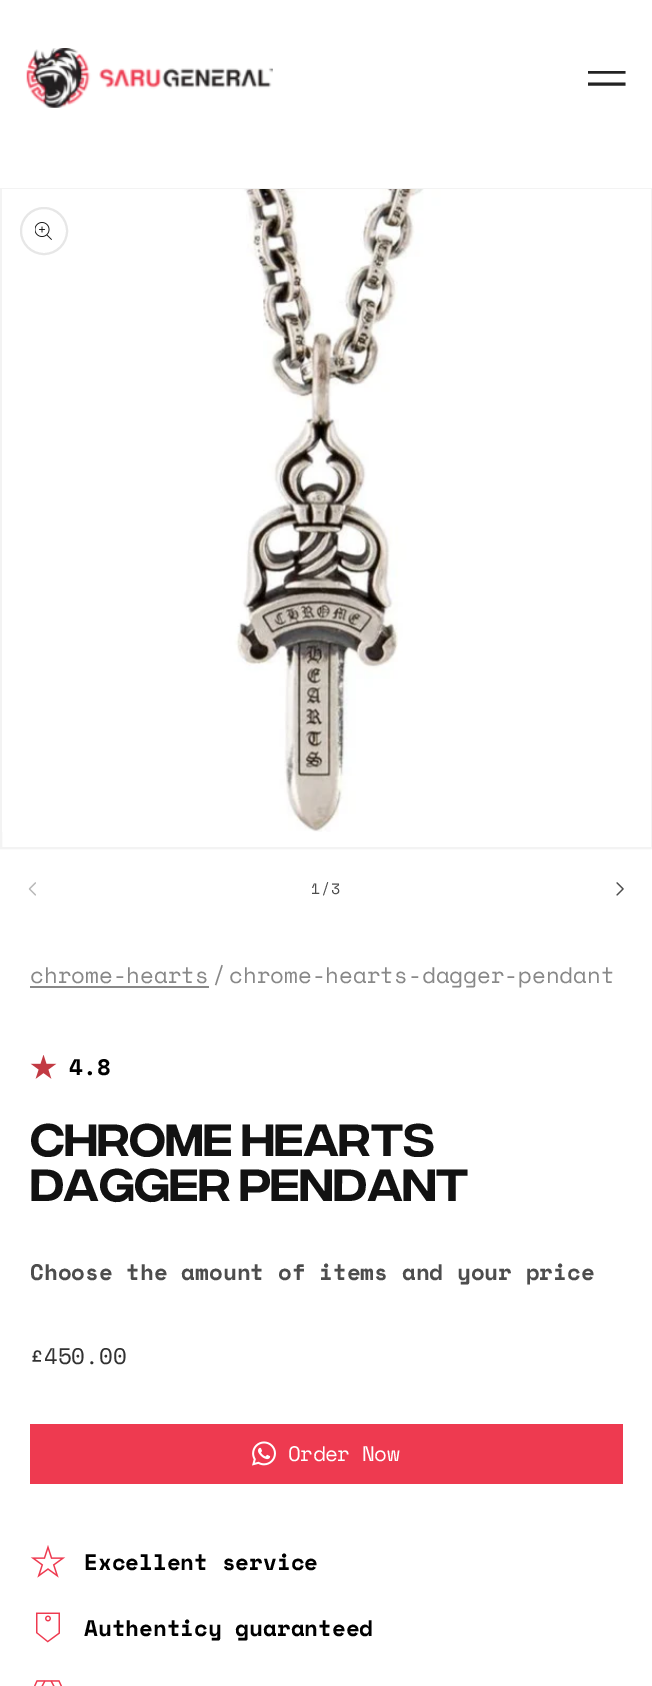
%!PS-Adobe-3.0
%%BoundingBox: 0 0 652 1686
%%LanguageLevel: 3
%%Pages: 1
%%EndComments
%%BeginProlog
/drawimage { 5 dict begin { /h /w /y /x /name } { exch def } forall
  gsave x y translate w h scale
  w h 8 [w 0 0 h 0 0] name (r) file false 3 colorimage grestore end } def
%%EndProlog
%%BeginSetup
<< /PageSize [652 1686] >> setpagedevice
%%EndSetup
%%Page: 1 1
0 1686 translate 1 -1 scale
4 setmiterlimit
1 setgray
0 0 652 1686 rectfill
(images/1.raw) 26 48 247 60 drawimage
gsave
588 71 39 15 rectclip
0.133 setgray
3 setlinewidth
newpath 588 72 moveto 625.5 72 lineto stroke
grestore
0.133 setgray
3 setlinewidth
newpath 588 84 moveto 625.5 84 lineto stroke
0.953 setgray
2 setlinewidth
1 189 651 659 rectstroke
(images/2.raw) 2 189 649 643 drawimage
0.906 setgray
newpath 44 231 23 0 360 arc closepath stroke
(images/3.raw) 35 222 17 18 drawimage
(images/4.raw) 28 882 8 14 drawimage
(images/5.raw) 616 882 8 14 drawimage
0.533 setgray
30 986 179 2 rectfill
(images/6.raw) 30 1055 27 24 drawimage
0.933 0.227 0.314 setrgbcolor
30 1424 593 60 rectfill
(images/7.raw) 252 1441 24 25 drawimage
(images/8.raw) 30 1545 36 33 drawimage
(images/9.raw) 36 1612 24 31 drawimage
(images/10.raw) 34 1680 28 6 drawimage
/SpaceMono-Regular [15 0 0 -15 0 0] selectfont
0.302 setgray
311 894 moveto 1 0 (1/3) ashow
/SpaceMono-Regular [22.5 0 0 -22.5 0 0] selectfont
0.533 setgray
30 983 moveto (chrome-hearts) show
212 983 moveto (/) show
229 983 moveto (chrome-hearts-dagger-pendant) show
/SpaceMono-Bold [22.5 0 0 -22.5 0 0] selectfont
0 setgray
69 1075 moveto (4.8) show
/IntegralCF-Regular [45 0 0 -45 0 0] selectfont
0.071 setgray
30 1156 moveto -0.75 0 (CHROME HEARTS) ashow
30 1201 moveto -0.75 0 (DAGGER PENDANT) ashow
/SpaceMono-Bold [22.5 0 0 -22.5 0 0] selectfont
0.302 setgray
30 1280 moveto (Choose the amount of items and your price) show
/SpaceMono-Regular [22.5 0 0 -22.5 0 0] selectfont
0.196 setgray
30 1364 moveto (£450.00) show
/SpaceMono-Regular [21 0 0 -21 0 0] selectfont
1 setgray
288 1461 moveto -0.5 0 (Order Now) ashow
/SpaceMono-Bold [22.5 0 0 -22.5 0 0] selectfont
0 setgray
84 1570 moveto (Excellent service) show
84 1636 moveto (Authenticy guaranteed) show
showpage
%%EOF
